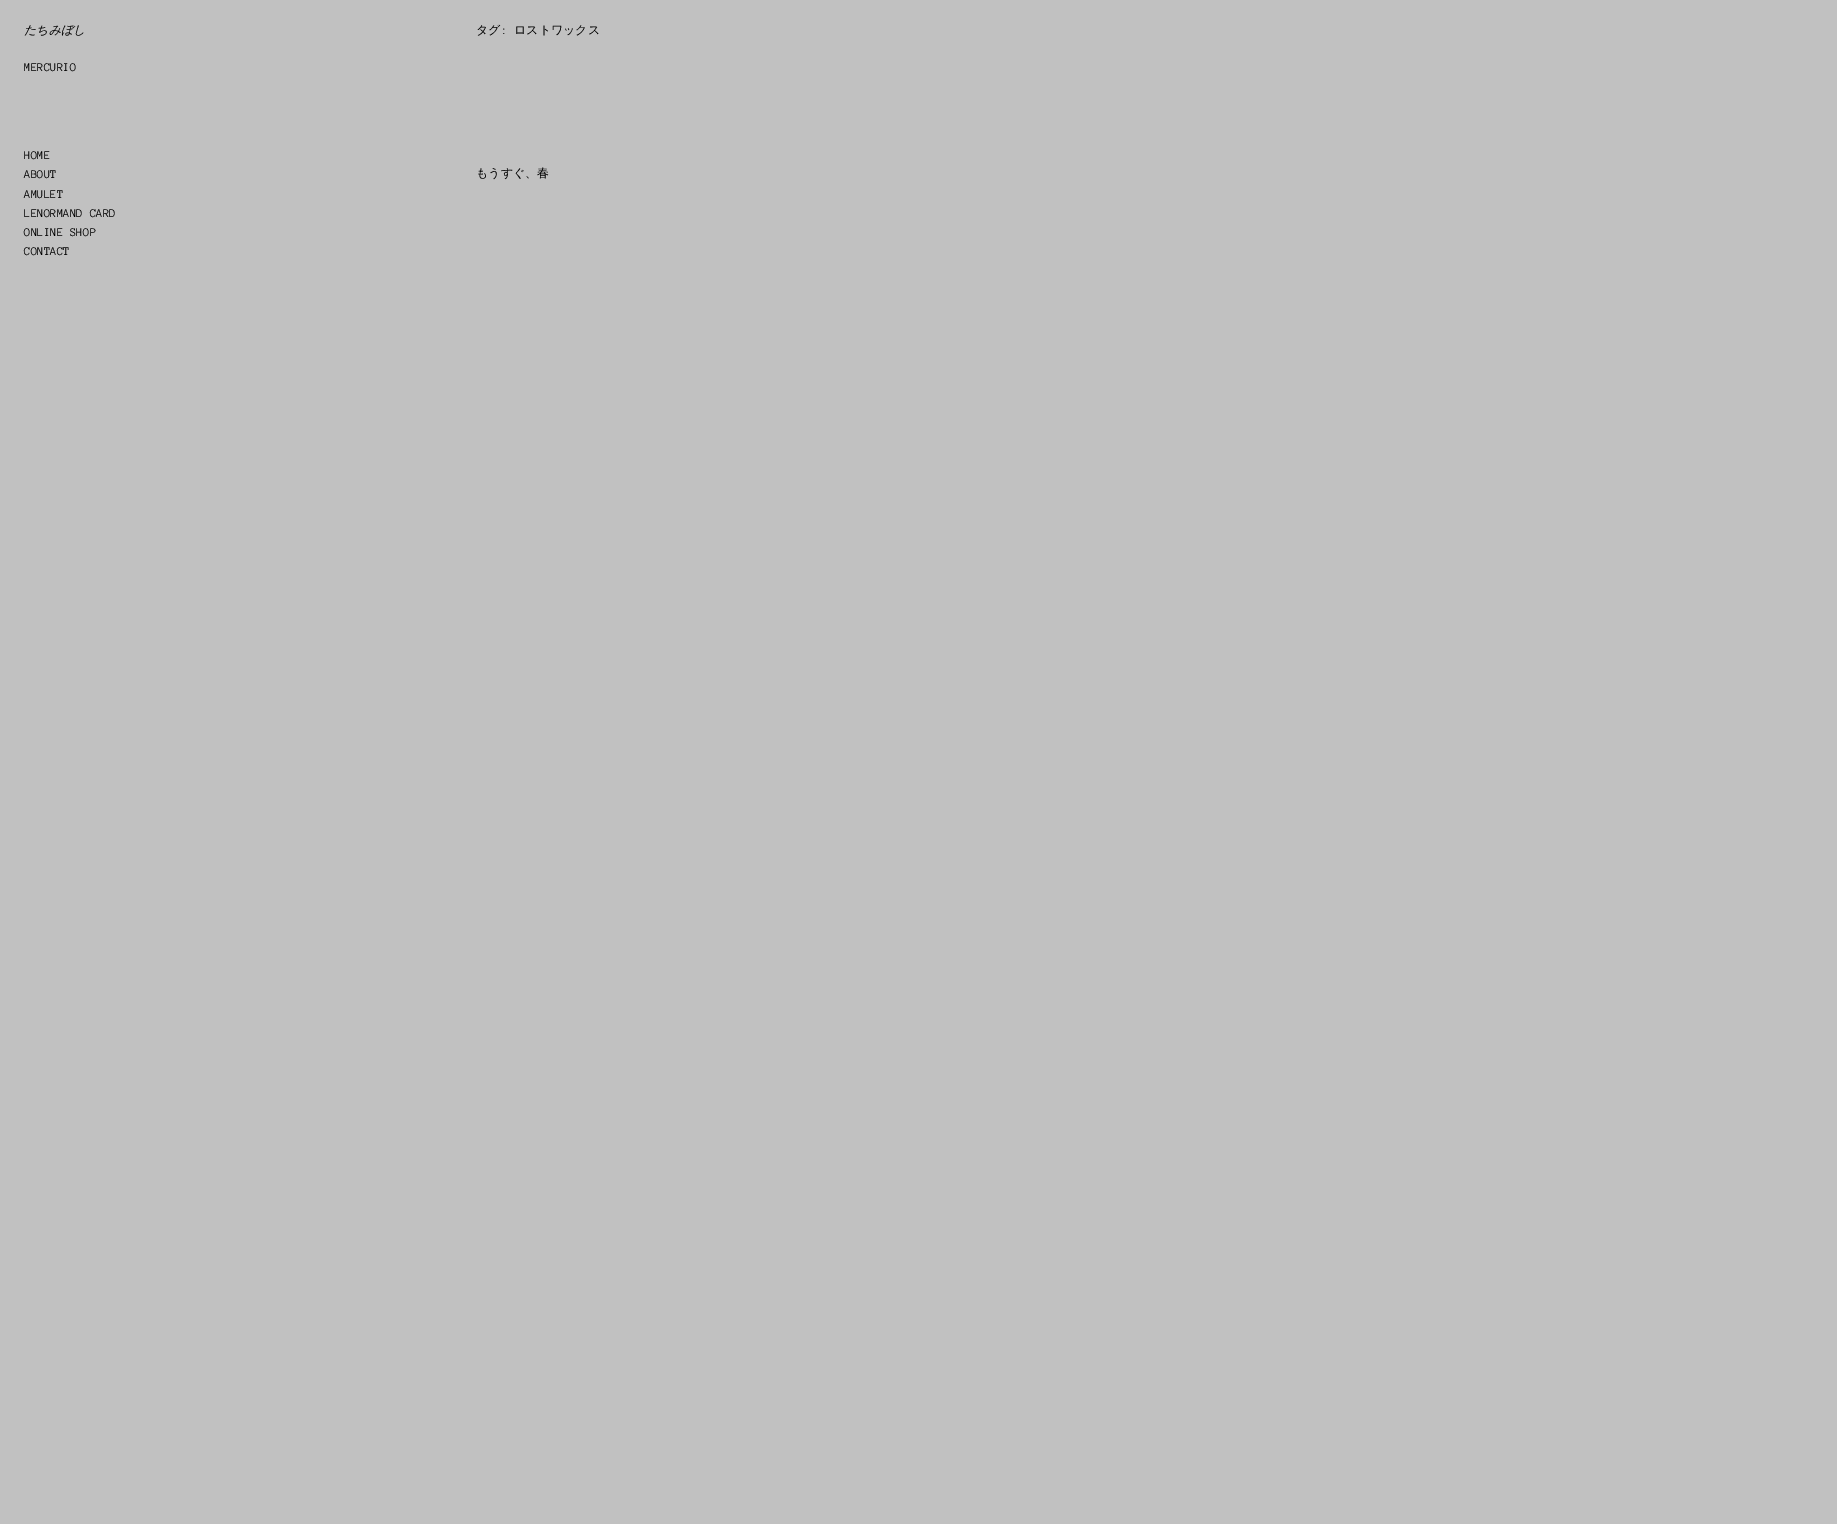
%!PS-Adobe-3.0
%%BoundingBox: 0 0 1837 1524
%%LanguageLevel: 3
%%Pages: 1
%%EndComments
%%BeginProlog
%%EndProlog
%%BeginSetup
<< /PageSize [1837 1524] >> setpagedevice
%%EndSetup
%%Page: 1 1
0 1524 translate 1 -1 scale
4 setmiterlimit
0.757 setgray
0 0 1837 1524 rectfill
/WenQuanYiZenHei-MediumItalic [12 0 0 -12 0 0] selectfont
0 setgray
24 34 moveto (たちみぼし) show
/AnonymousPro-Regular [12 0 0 -12 0 0] selectfont
24 71 moveto (MERCURIO) show
24 159 moveto (HOME) show
24 178 moveto (ABOUT) show
24 198 moveto (AMULET) show
24 217 moveto (LENORMAND CARD) show
24 236 moveto (ONLINE SHOP) show
24 255 moveto (CONTACT) show
/WenQuanYiZenHei-Medium [12 0 0 -12 0 0] selectfont
476 34 moveto (タグ) show
/AnonymousPro-Regular [12 0 0 -12 0 0] selectfont
501 34 moveto (:) show
/WenQuanYiZenHei-Medium [12 0 0 -12 0 0] selectfont
514 34 moveto (ロストワックス) show
476 177 moveto (もうすぐ、春) show
showpage
%%EOF
